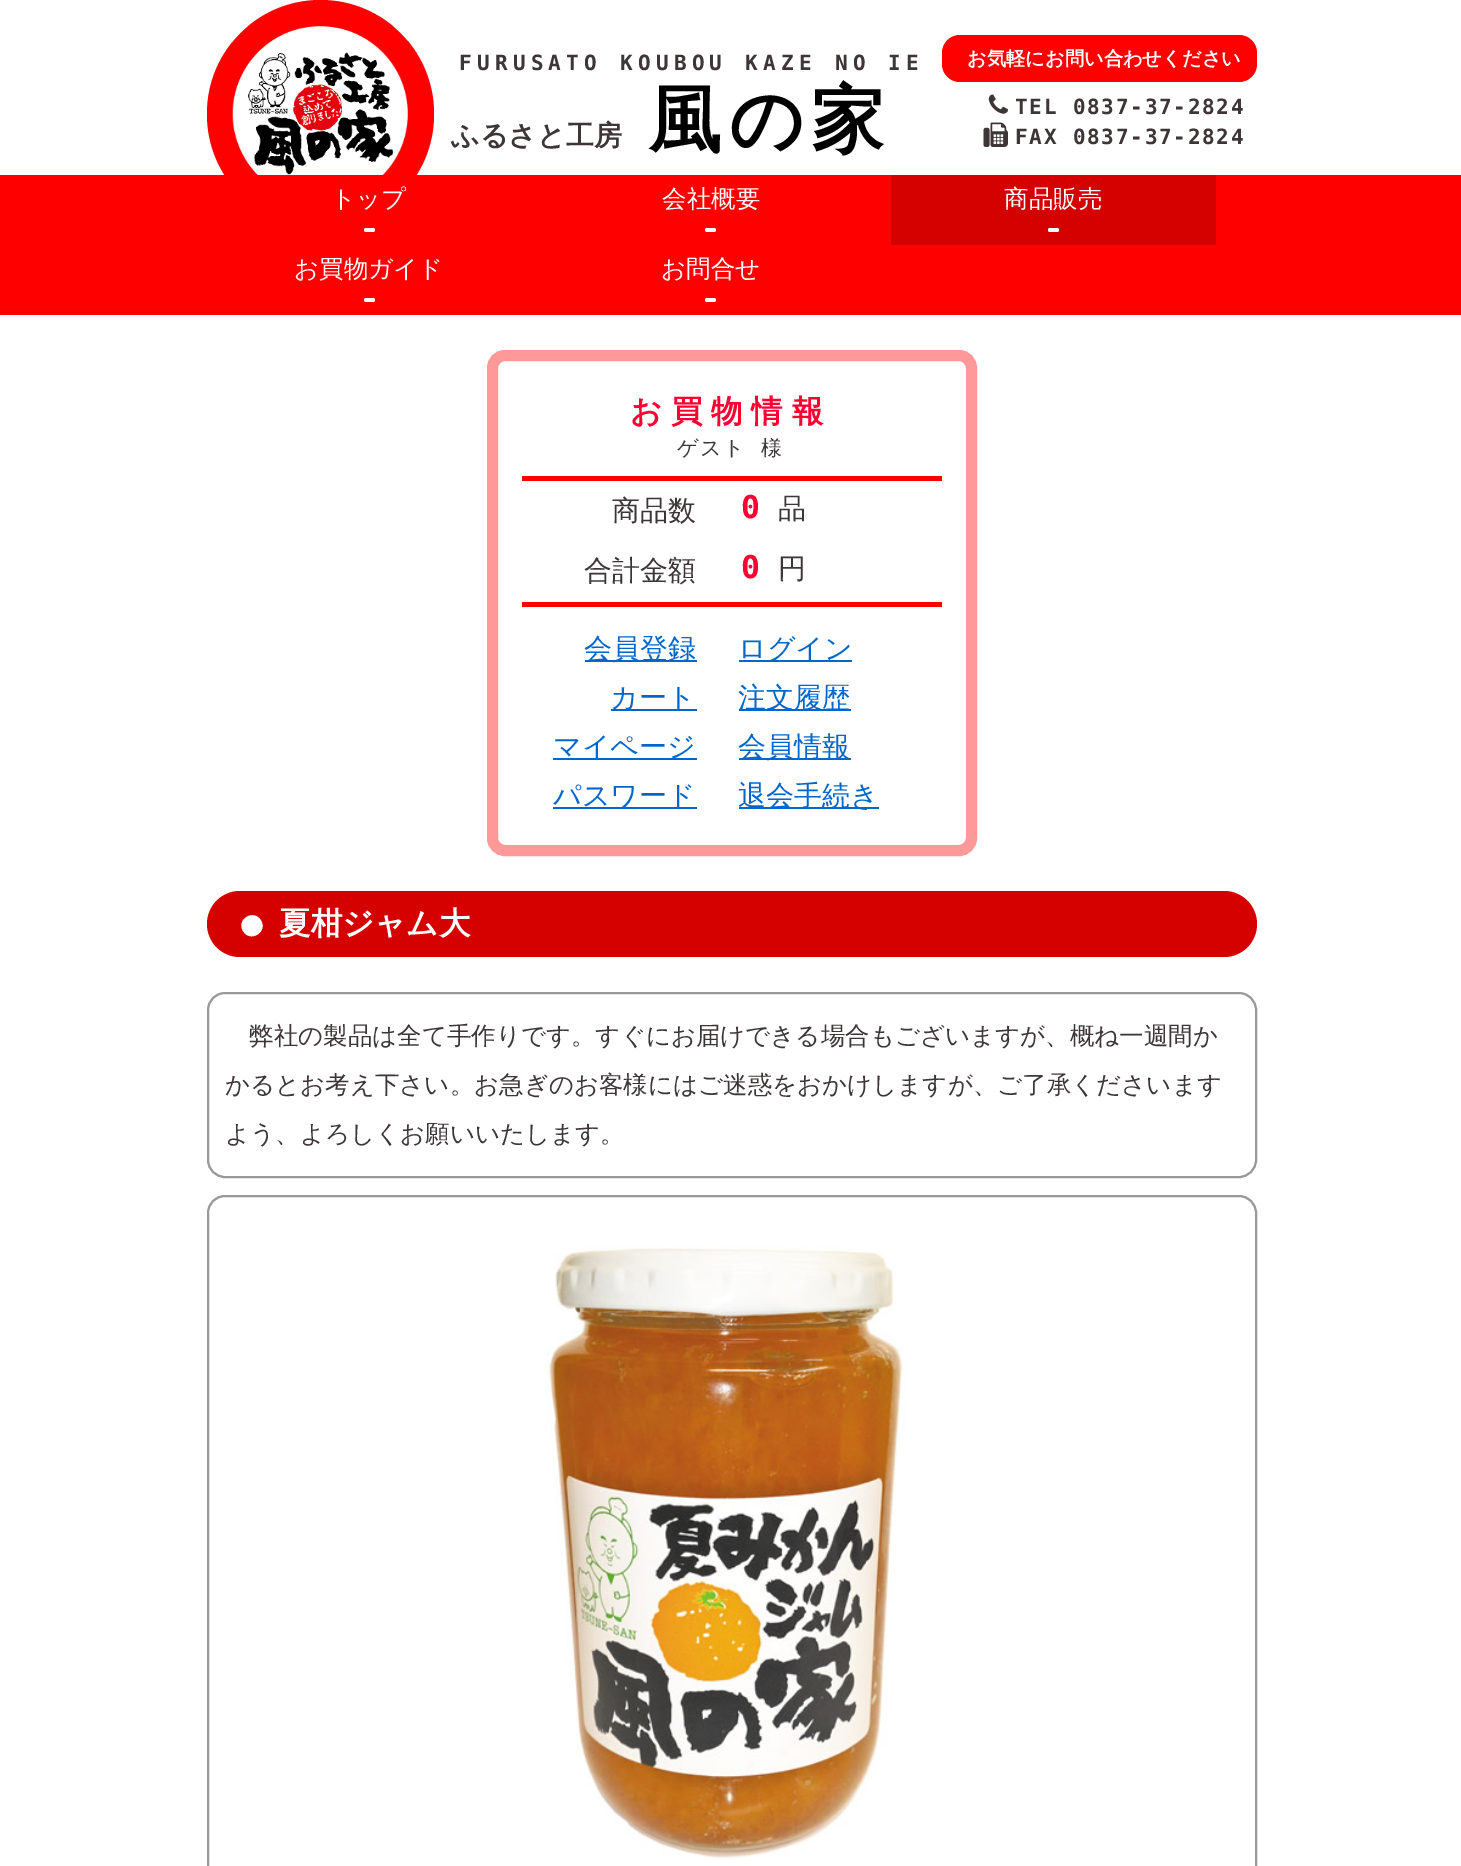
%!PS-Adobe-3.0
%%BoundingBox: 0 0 1461 1866
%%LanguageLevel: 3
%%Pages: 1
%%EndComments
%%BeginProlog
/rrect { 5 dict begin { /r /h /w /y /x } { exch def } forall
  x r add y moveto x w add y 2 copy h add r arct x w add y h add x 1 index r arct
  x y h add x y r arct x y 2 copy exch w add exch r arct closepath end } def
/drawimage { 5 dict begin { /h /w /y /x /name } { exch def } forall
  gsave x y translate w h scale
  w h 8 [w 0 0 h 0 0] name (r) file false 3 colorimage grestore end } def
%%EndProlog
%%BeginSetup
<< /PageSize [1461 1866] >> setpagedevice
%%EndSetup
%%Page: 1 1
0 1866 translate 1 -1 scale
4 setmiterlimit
1 setgray
0 0 1461 1866 rectfill
1 0 0 setrgbcolor
0 175 1461 140 rectfill
207 0 227 228 113.5 rrect fill
(images/1.raw) 232 26 176 149 drawimage
942 35 315 47 18 rrect fill
(images/2.raw) 988 94 20 20 drawimage
(images/3.raw) 983 122 25 25 drawimage
1 setgray
364 228 11 4 2 rrect fill
705 228 11 4 2 rrect fill
0.835 0 0 setrgbcolor
891 175 325 70 rectfill
1 setgray
1048 228 11 4 2 rrect fill
364 298 11 4 2 rrect fill
705 298 11 4 2 rrect fill
1 0.6 0.6 setrgbcolor
11 setlinewidth
492.5 355.5 479 495 12.5 rrect stroke
1 0 0 setrgbcolor
522 476 420 5 rectfill
522 602 420 5 rectfill
0 0.4 0.8 setrgbcolor
585 660 112 2 rectfill
739 660 113 2 rectfill
611 709 86 2 rectfill
739 709 112 2 rectfill
553 758 144 2 rectfill
739 758 112 2 rectfill
553 807 144 2 rectfill
739 807 140 2 rectfill
0.835 0 0 setrgbcolor
207 891 1050 66 33 rrect fill
1 setgray
newpath 261 920.5 moveto 268 932.5 250 943 243 931 curveto 236 919 254 908.5 261 920.5 curveto closepath fill
0.6 setgray
2 setlinewidth
208 993 1048 184 17 rrect stroke
208 1196 1048 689 17 rrect stroke
(images/4.raw) 546 1245 360 614 drawimage
/DejaVuSansMono-Bold [21 0 0 -21 0 0] selectfont
0.239 0.208 0.212 setrgbcolor
459 70 moveto 5.25 0 (FURUSATO KOUBOU KAZE NO IE) ashow
/WenQuanYiZenHei-Bold [19.25 0 0 -19.25 0 0] selectfont
1 setgray
967 65 moveto (お気軽にお問い合わせください) show
/DejaVuSansMono-Bold [21 0 0 -21 0 0] selectfont
0.239 0.208 0.212 setrgbcolor
1015 114 moveto 1.75 0 (TEL 0837-37-2824) ashow
1015 144 moveto 1.75 0 (FAX 0837-37-2824) ashow
/WenQuanYiZenHei-Bold [28 0 0 -28 0 0] selectfont
451 145 moveto (ふるさと工房) show
/WenQuanYiZenHei-Bold [73.5 0 0 -73.5 0 0] selectfont
0 setgray
648 145 moveto 7 0 (風の家) ashow
/WenQuanYiZenHei-Medium [24.5 0 0 -24.5 0 0] selectfont
1 setgray
331 207 moveto (トップ) show
662 207 moveto (会社概要) show
1004 207 moveto (商品販売) show
294 277 moveto (お買物ガイド) show
661 277 moveto (お問合せ) show
/WenQuanYiZenHei-Bold [31.5 0 0 -31.5 0 0] selectfont
1 0 0.2 setrgbcolor
630 422 moveto 8.75 0 (お買物情報) ashow
/WenQuanYiZenHei-Medium [21 0 0 -21 0 0] selectfont
0.239 0.208 0.212 setrgbcolor
677 455 moveto 6 0 32 1.75 0 (ゲスト 様) awidthshow
/WenQuanYiZenHei-Medium [28 0 0 -28 0 0] selectfont
612 520 moveto (商品数) show
/DejaVuSansMono-Bold [31.5 0 0 -31.5 0 0] selectfont
1 0 0.2 setrgbcolor
741 518 moveto (0) show
/WenQuanYiZenHei-Medium [28 0 0 -28 0 0] selectfont
0.239 0.208 0.212 setrgbcolor
778 518 moveto (品) show
584 580 moveto (合計金額) show
/DejaVuSansMono-Bold [31.5 0 0 -31.5 0 0] selectfont
1 0 0.2 setrgbcolor
741 578 moveto (0) show
/WenQuanYiZenHei-Medium [28 0 0 -28 0 0] selectfont
0.239 0.208 0.212 setrgbcolor
778 578 moveto (円) show
0 0.4 0.8 setrgbcolor
584 658 moveto (会員登録) show
738 658 moveto (ログイン) show
610 707 moveto (カート) show
738 707 moveto (注文履歴) show
553 756 moveto (マイページ) show
738 756 moveto (会員情報) show
553 805 moveto (パスワード) show
738 805 moveto (退会手続き) show
/WenQuanYiZenHei-Bold [31.5 0 0 -31.5 0 0] selectfont
1 setgray
279 934 moveto (夏柑ジャム大) show
/WenQuanYiZenHei-Medium [24.5 0 0 -24.5 0 0] selectfont
0.239 0.208 0.212 setrgbcolor
249 1044 moveto (弊社の製品は全て手作りです。すぐにお届けできる場合もございますが、概ね一週間か) show
225 1093 moveto (かるとお考え下さい。お急ぎのお客様にはご迷惑をおかけしますが、ご了承くださいます) show
225 1142 moveto (よう、よろしくお願いいたします。) show
showpage
%%EOF
